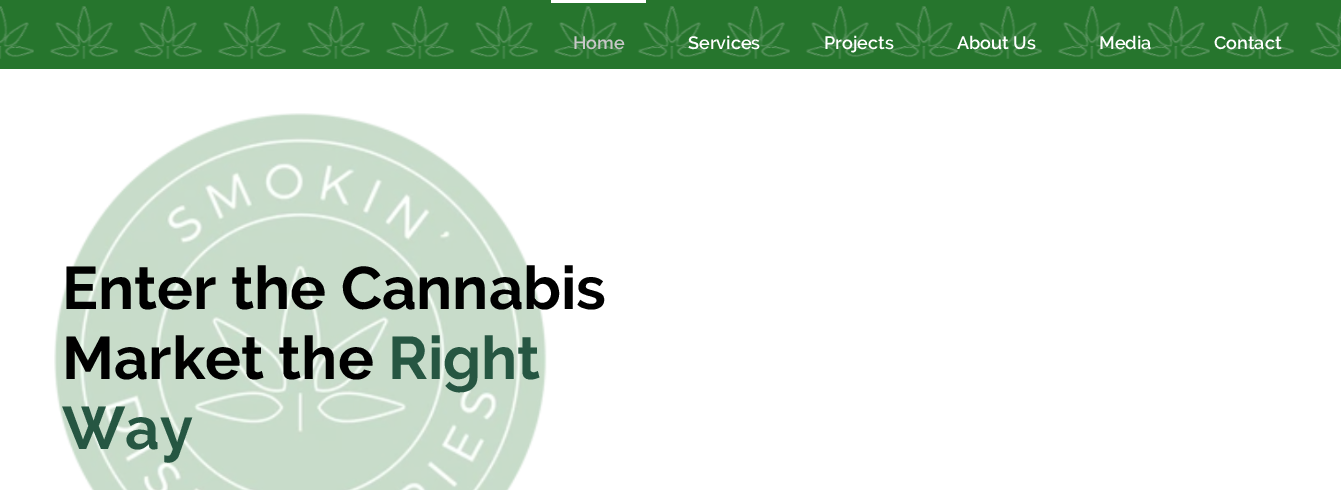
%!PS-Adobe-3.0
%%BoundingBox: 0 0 1341 490
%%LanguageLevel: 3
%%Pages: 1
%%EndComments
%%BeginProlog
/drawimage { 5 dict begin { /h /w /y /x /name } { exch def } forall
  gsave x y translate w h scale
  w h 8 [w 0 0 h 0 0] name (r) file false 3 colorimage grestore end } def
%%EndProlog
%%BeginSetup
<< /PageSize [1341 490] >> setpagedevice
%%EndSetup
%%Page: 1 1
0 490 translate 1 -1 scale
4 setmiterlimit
1 setgray
0 0 1341 490 rectfill
0.149 0.459 0.176 setrgbcolor
0 0 1341 69 rectfill
(images/1.raw) 0 6 1341 53 drawimage
1 setgray
551 0 95 3 rectfill
(images/2.raw) 54 113 493 377 drawimage
/Raleway-SemiBold [18 0 0 -18 0 0] selectfont
0.78 setgray
573 49 moveto (Home) show
1 setgray
688 49 moveto (Services) show
824 49 moveto (Projects) show
957 49 moveto (About Us) show
1099 49 moveto (Media) show
1214 49 moveto (Contact) show
/Raleway-Bold [60 0 0 -60 0 0] selectfont
0 setgray
62 309 moveto (Enter the Cannabis) show
62 379 moveto (Market the) show
0.149 0.337 0.259 setrgbcolor
388 379 moveto (Right) show
62 449 moveto (Way) show
showpage
%%EOF
